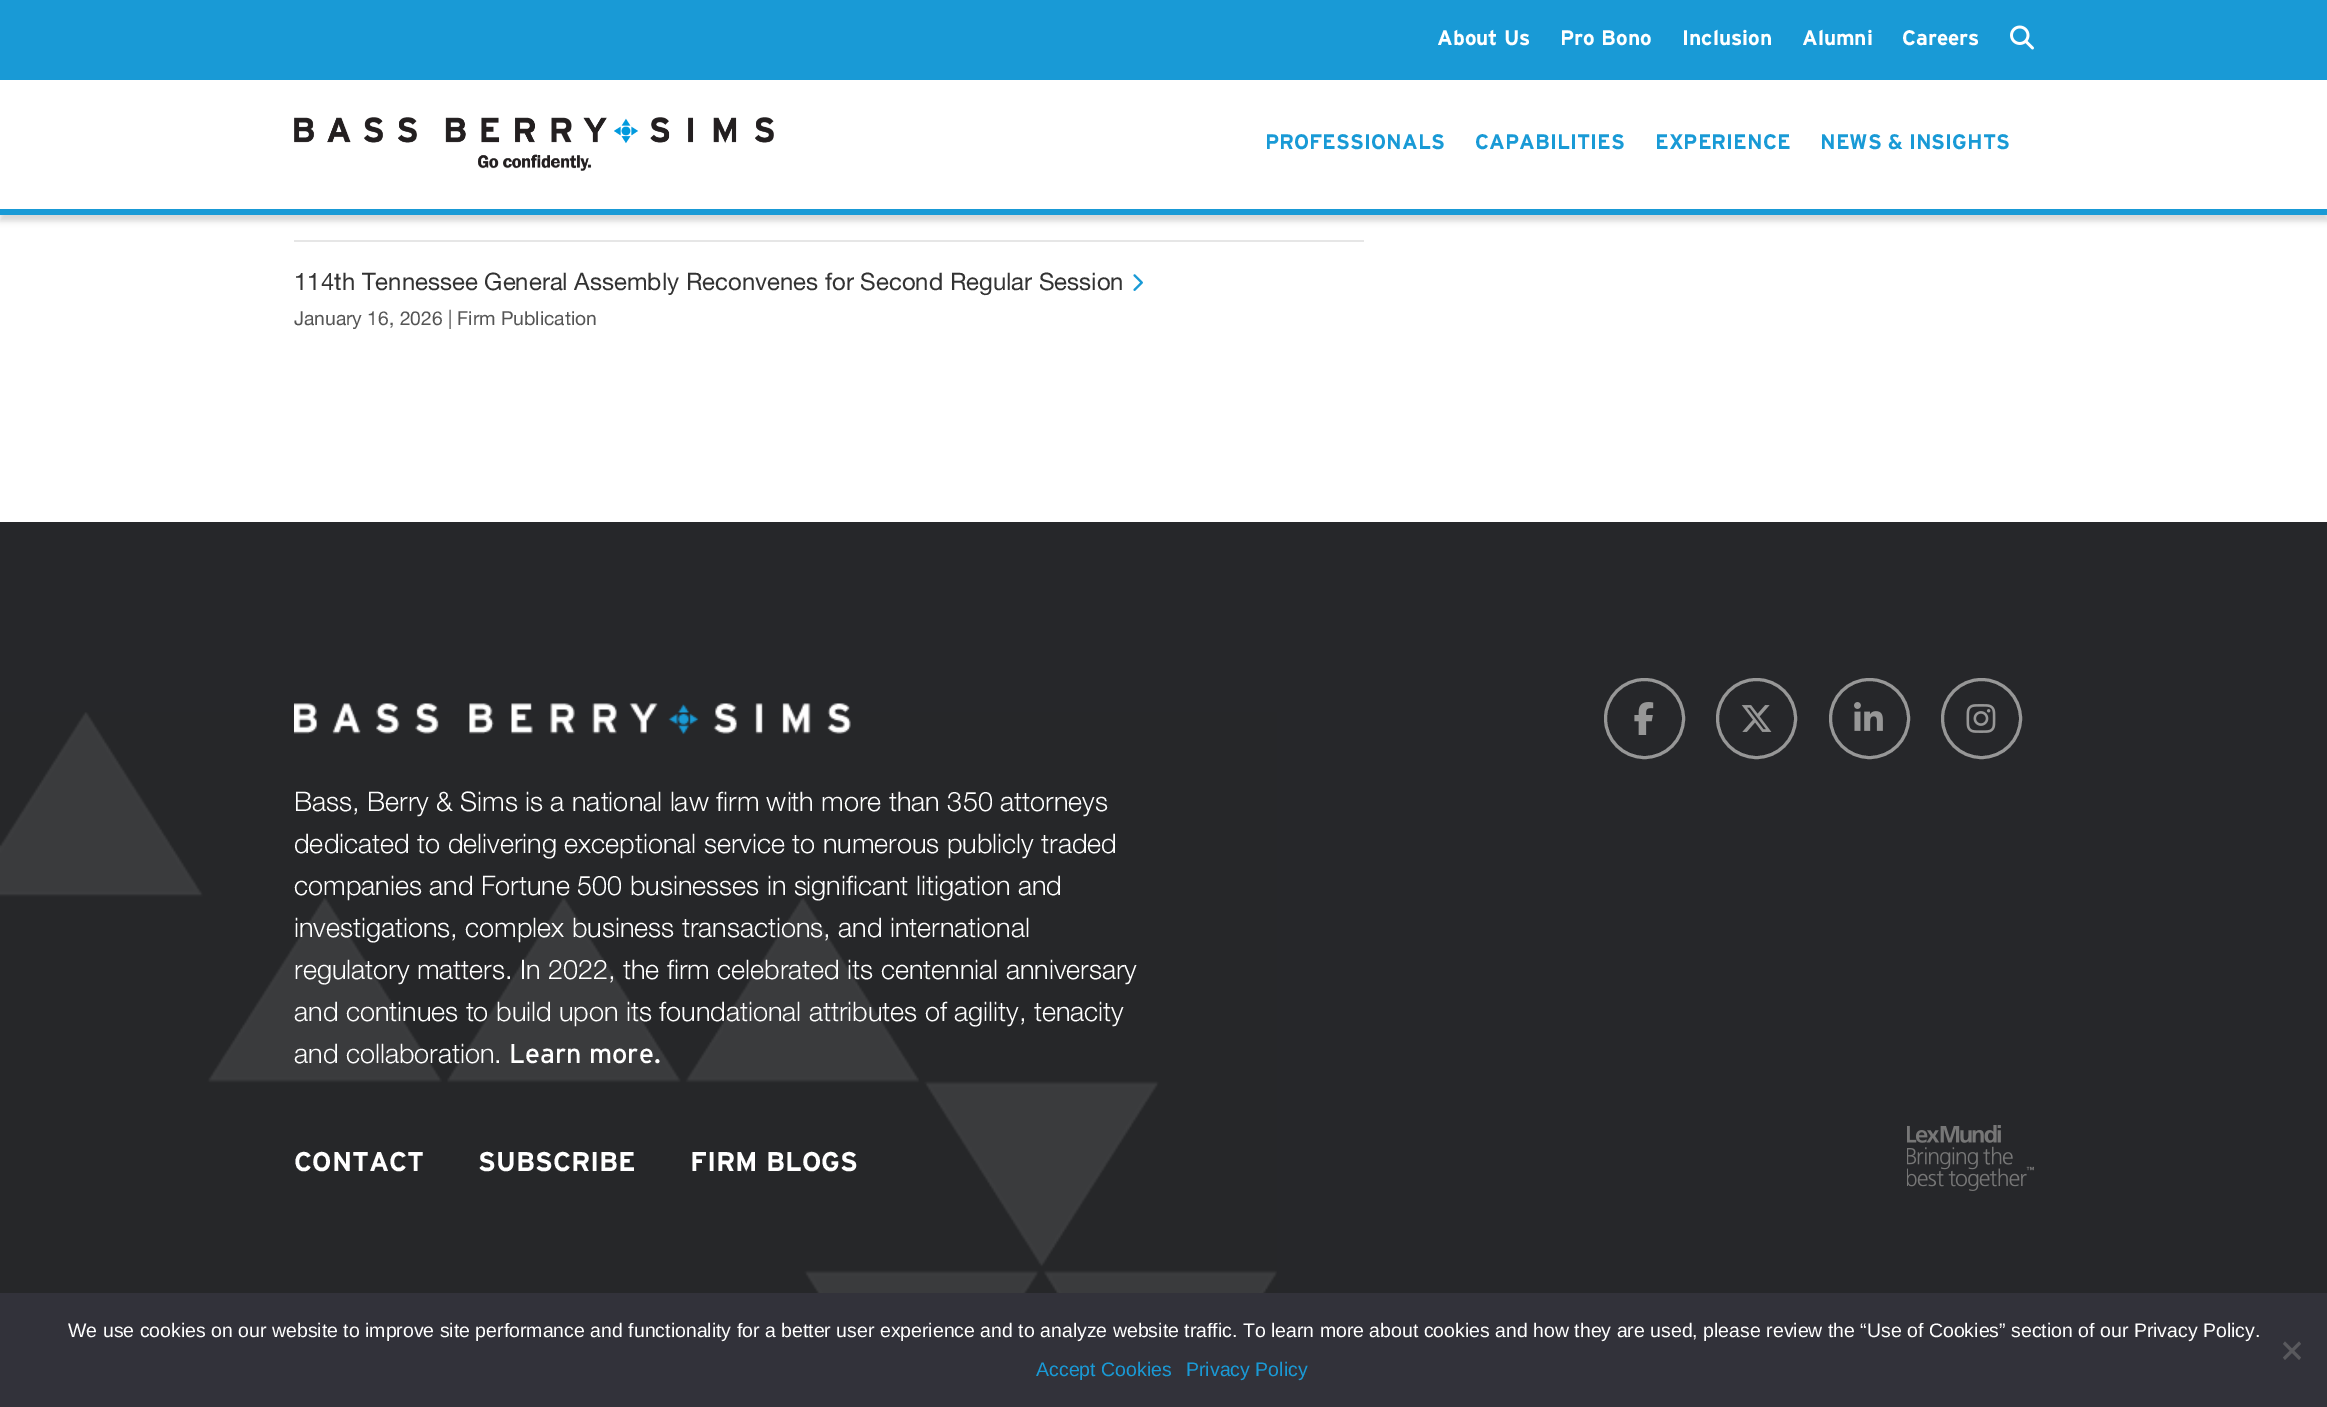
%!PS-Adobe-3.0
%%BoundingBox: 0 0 2327 1407
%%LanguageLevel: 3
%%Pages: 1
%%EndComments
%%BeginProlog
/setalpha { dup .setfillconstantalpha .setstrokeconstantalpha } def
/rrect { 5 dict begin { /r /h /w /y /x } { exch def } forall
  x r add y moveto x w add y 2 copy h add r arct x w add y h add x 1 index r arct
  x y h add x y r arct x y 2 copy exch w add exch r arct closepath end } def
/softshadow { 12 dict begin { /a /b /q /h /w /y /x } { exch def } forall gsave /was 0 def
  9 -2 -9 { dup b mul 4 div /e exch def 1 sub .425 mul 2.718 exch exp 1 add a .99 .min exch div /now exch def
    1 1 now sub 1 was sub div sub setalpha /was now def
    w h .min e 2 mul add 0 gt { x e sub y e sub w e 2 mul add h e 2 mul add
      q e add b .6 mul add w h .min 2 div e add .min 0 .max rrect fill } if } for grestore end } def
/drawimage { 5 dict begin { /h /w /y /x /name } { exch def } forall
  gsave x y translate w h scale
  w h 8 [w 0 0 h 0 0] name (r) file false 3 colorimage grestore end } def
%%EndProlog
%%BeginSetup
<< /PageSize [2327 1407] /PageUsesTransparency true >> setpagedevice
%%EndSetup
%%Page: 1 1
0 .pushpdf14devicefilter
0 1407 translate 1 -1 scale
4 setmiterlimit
1 setgray
0 0 2327 1407 rectfill
0 setgray
0 6 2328 215 0 3 0.16 softshadow
1 setgray
0 80 2327 129 rectfill
0.098 0.604 0.839 setrgbcolor
0 209 2327 6 rectfill
0 0 2327 80 rectfill
(images/1.raw) 2010 25 24 25 drawimage
(images/2.raw) 294 117 480 54 drawimage
0.902 setgray
294 240 1070 2 rectfill
(images/3.raw) 1133 274 10 17 drawimage
0.149 0.153 0.165 setrgbcolor
0 522 2327 771 rectfill
(images/4.raw) 0 712 1277 581 drawimage
(images/5.raw) 294 703 557 32 drawimage
0.592 setgray
3 setlinewidth
newpath 1644.5 718.5 39 0 360 arc closepath stroke
(images/6.raw) 1634 702 20 33 drawimage
newpath 1756.5 718.5 39 0 360 arc closepath stroke
(images/7.raw) 1741 705 31 27 drawimage
newpath 1869.5 718.5 39 0 360 arc closepath stroke
(images/8.raw) 1854 702 29 29 drawimage
newpath 1981.5 718.5 39 0 360 arc closepath stroke
(images/9.raw) 1966 704 30 29 drawimage
(images/10.raw) 1907 1125 127 66 drawimage
0.196 0.196 0.227 setrgbcolor
0 1293 2327 114 rectfill
0.349 0.349 0.365 setrgbcolor
newpath 2299 1341.5 moveto 2301 1344 lineto 2285 1360 lineto 2283 1357.5 lineto closepath fill
newpath 2283 1344 moveto 2285 1341.5 lineto 2301 1357.5 lineto 2299 1360 lineto closepath fill
/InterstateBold-Bold [21 0 0 -21 0 0] selectfont
1 setgray
1437 45 moveto (About Us) show
1560 45 moveto (Pro Bono) show
1682 45 moveto (Inclusion) show
1802 45 moveto (Alumni) show
1902 45 moveto (Careers) show
0.098 0.604 0.839 setrgbcolor
1265 149 moveto (PROFESSIONALS) show
1475 149 moveto (CAPABILITIES) show
1655 149 moveto (EXPERIENCE) show
1820 149 moveto (NEWS & INSIGHTS) show
/HelveticaNeue-Regular [24 0 0 -24 0 0] selectfont
0.2 setgray
294 290 moveto (114th Tennessee General Assembly Reconvenes for Second Regular Session) show
/HelveticaNeue-Regular [19.25 0 0 -19.25 0 0] selectfont
0.333 setgray
294 325 moveto (January 16, 2026 | Firm Publication) show
/HelveticaNeue-Light [27 0 0 -27 0 0] selectfont
1 setgray
294 811 moveto (Bass, Berry & Sims is a national law firm with more than 350 attorneys) show
294 853 moveto (dedicated to delivering exceptional service to numerous publicly traded) show
294 895 moveto (companies and Fortune 500 businesses in significant litigation and) show
294 937 moveto (investigations, complex business transactions, and international) show
294 979 moveto (regulatory matters. In 2022, the firm celebrated its centennial anniversary) show
294 1021 moveto (and continues to build upon its foundational attributes of agility, tenacity) show
294 1063 moveto (and collaboration.) show
/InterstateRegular-Regular [27 0 0 -27 0 0] selectfont
509 1063 moveto (Learn more.) show
/InterstateBold-Bold [27 0 0 -27 0 0] selectfont
294 1171 moveto (CONTACT) show
478 1171 moveto (SUBSCRIBE) show
690 1171 moveto (FIRM BLOGS) show
/LiberationSans-Regular [19.5 0 0 -19.5 0 0] selectfont
68 1337 moveto (We use cookies on our website to improve site performance and functionality for a better user experience and to analyze website traffic. To learn more about cookies and how they are used, please review the “Use of Cookies” section of our Privacy Policy.) show
0.098 0.604 0.839 setrgbcolor
1036 1376 moveto (Accept Cookies) show
1186 1376 moveto (Privacy Policy) show
.poppdf14devicefilter showpage
%%EOF
